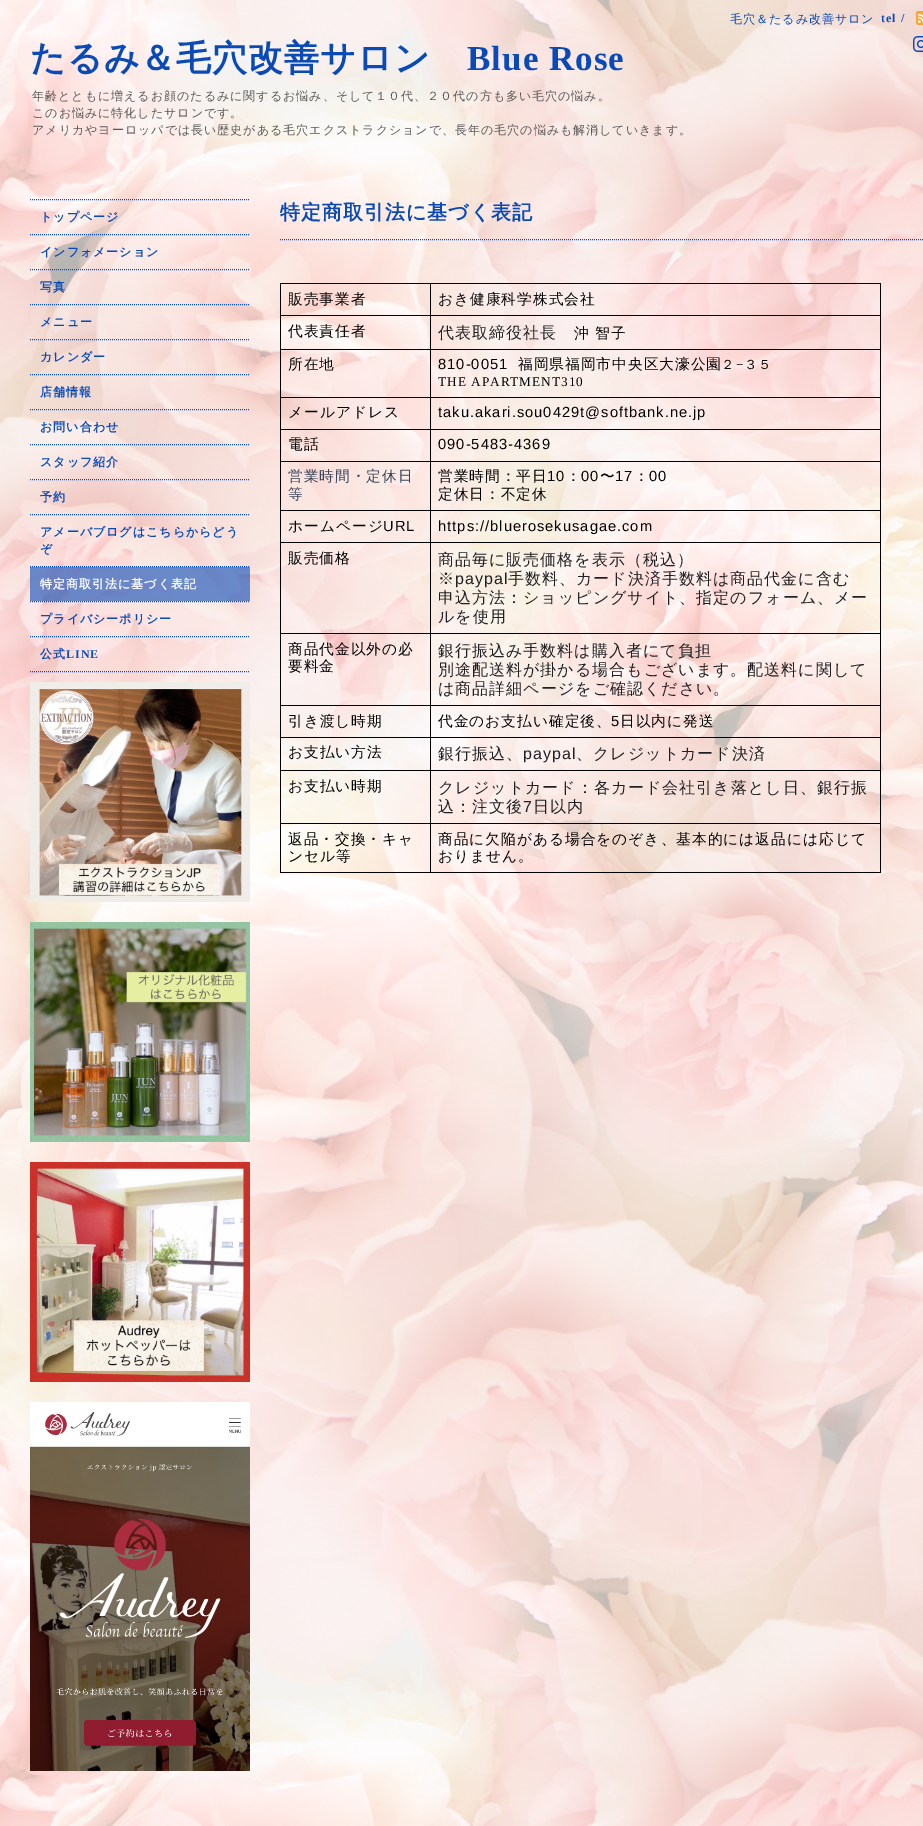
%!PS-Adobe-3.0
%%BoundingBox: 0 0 923 1826
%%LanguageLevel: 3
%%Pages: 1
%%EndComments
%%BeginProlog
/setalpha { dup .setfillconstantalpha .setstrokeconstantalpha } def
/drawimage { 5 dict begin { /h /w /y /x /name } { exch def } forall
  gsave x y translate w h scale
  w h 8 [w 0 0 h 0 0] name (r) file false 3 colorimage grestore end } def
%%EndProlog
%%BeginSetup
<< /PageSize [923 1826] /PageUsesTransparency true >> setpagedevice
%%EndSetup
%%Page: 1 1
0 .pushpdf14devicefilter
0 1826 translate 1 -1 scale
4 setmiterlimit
1 setgray
0 0 923 1826 rectfill
(images/1.raw) 0 0 923 1826 drawimage
(images/2.raw) 916 11 7 14 drawimage
(images/3.raw) 913 36 10 16 drawimage
0.035 0.29 0.718 setrgbcolor
[1 1] 0 setdash
newpath 30 199.5 moveto 250 199.5 lineto stroke
newpath 30 234.5 moveto 250 234.5 lineto stroke
newpath 30 269.5 moveto 250 269.5 lineto stroke
newpath 30 304.5 moveto 250 304.5 lineto stroke
newpath 30 339.5 moveto 250 339.5 lineto stroke
newpath 30 374.5 moveto 250 374.5 lineto stroke
newpath 30 409.5 moveto 250 409.5 lineto stroke
newpath 30 444.5 moveto 250 444.5 lineto stroke
newpath 30 479.5 moveto 250 479.5 lineto stroke
newpath 30 514.5 moveto 250 514.5 lineto stroke
newpath 30 566.5 moveto 250 566.5 lineto stroke
newpath 30 601.5 moveto 250 601.5 lineto stroke
0.6 setalpha
30 567 220 34 rectfill
1 setalpha
newpath 30 636.5 moveto 250 636.5 lineto stroke
newpath 30 671.5 moveto 250 671.5 lineto stroke
(images/4.raw) 30 682 220 220 drawimage
(images/5.raw) 30 922 220 220 drawimage
(images/6.raw) 30 1162 220 220 drawimage
(images/7.raw) 30 1402 220 369 drawimage
newpath 280 239.5 moveto 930 239.5 lineto stroke
0 setgray
430 283 451 1 rectfill
430 315 451 1 rectfill
430 349 451 1 rectfill
430 397 451 1 rectfill
430 429 451 1 rectfill
430 461 451 1 rectfill
430 510 451 1 rectfill
430 542 451 1 rectfill
430 633 451 1 rectfill
430 705 451 1 rectfill
430 737 451 1 rectfill
430 770 451 1 rectfill
430 823 451 1 rectfill
880 823 1 50 rectfill
430 872 451 1 rectfill
430 823 1 50 rectfill
280 823 151 1 rectfill
430 770 1 54 rectfill
280 770 151 1 rectfill
430 737 1 34 rectfill
280 737 151 1 rectfill
430 705 1 33 rectfill
280 705 151 1 rectfill
430 633 1 73 rectfill
280 633 151 1 rectfill
430 542 1 92 rectfill
280 542 151 1 rectfill
430 510 1 33 rectfill
280 510 151 1 rectfill
430 461 1 50 rectfill
280 461 151 1 rectfill
430 429 1 33 rectfill
280 429 151 1 rectfill
430 397 1 33 rectfill
280 397 151 1 rectfill
430 349 1 49 rectfill
280 349 151 1 rectfill
430 315 1 35 rectfill
280 315 151 1 rectfill
430 283 1 33 rectfill
280 283 151 1 rectfill
280 872 151 1 rectfill
280 823 1 50 rectfill
280 770 1 54 rectfill
280 737 1 34 rectfill
280 705 1 33 rectfill
280 633 1 73 rectfill
280 542 1 92 rectfill
280 510 1 33 rectfill
280 461 1 50 rectfill
280 429 1 33 rectfill
280 397 1 33 rectfill
280 349 1 49 rectfill
280 315 1 35 rectfill
280 283 1 33 rectfill
880 770 1 54 rectfill
880 737 1 34 rectfill
880 705 1 33 rectfill
880 633 1 73 rectfill
880 542 1 92 rectfill
880 510 1 33 rectfill
880 461 1 50 rectfill
880 429 1 33 rectfill
880 397 1 33 rectfill
880 349 1 49 rectfill
880 315 1 35 rectfill
880 283 1 33 rectfill
/WenQuanYiZenHei-Medium [12 0 0 -12 0 0] selectfont
0.035 0.29 0.718 setrgbcolor
730 23 moveto 1 0 (毛穴＆たるみ改善サロン) ashow
/LiberationSerif-Bold [12 0 0 -12 0 0] selectfont
881 22 moveto 1 0 (tel /) ashow
/WenQuanYiZenHei-Bold [35 0 0 -35 0 0] selectfont
30 70 moveto 1 0 (たるみ＆毛穴改善サロン) ashow
/LiberationSerif-Bold [35 0 0 -35 0 0] selectfont
467 70 moveto 1 0 (Blue Rose) ashow
/WenQuanYiZenHei-Medium [12 0 0 -12 0 0] selectfont
0.341 setgray
32 100 moveto 1 0 (年齢とともに増えるお顔のたるみに関するお悩み、そして１０代、２０代の方も多い毛穴の悩み。) ashow
32 117 moveto 1 0 (このお悩みに特化したサロンです。) ashow
32 134 moveto 1 0 (アメリカやヨーロッパでは長い歴史がある毛穴エクストラクションで、長年の毛穴の悩みも解消していきます。) ashow
/WenQuanYiZenHei-Bold [12 0 0 -12 0 0] selectfont
0.035 0.29 0.718 setrgbcolor
40 221 moveto 1 0 (トップページ) ashow
40 256 moveto 1 0 (インフォメーション) ashow
40 291 moveto 1 0 (写真) ashow
40 326 moveto 1 0 (メニュー) ashow
40 361 moveto 1 0 (カレンダー) ashow
40 396 moveto 1 0 (店舗情報) ashow
40 431 moveto 1 0 (お問い合わせ) ashow
40 466 moveto 1 0 (スタッフ紹介) ashow
40 501 moveto 1 0 (予約) ashow
40 536 moveto 1 0 (アメーバブログはこちらからどう) ashow
40 553 moveto 1 0 (ぞ) ashow
1 setgray
40 588 moveto 1 0 (特定商取引法に基づく表記) ashow
0.035 0.29 0.718 setrgbcolor
40 623 moveto 1 0 (プライバシーポリシー) ashow
40 658 moveto 1 0 (公式) ashow
/LiberationSerif-Bold [12 0 0 -12 0 0] selectfont
66 658 moveto 1 0 (LINE) ashow
/WenQuanYiZenHei-Bold [20 0 0 -20 0 0] selectfont
280 219 moveto 1 0 (特定商取引法に基づく表記) ashow
/WenQuanYiZenHei-Medium [14.7 0 0 -14.7 0 0] selectfont
0 setgray
288 304 moveto 1 0 (販売事業者) ashow
438 304 moveto 1 0 (おき健康科学株式会社) ashow
288 336 moveto 1 0 (代表責任者) ashow
/WenQuanYiZenHei-Medium [16 0 0 -16 0 0] selectfont
0.125 0.129 0.141 setrgbcolor
438 338 moveto 1 0 (代表取締役社長) ashow
/WenQuanYiZenHei-Medium [14.7 0 0 -14.7 0 0] selectfont
0 setgray
574 338 moveto 1 0 (沖 智子) ashow
288 369 moveto 1 0 (所在地) ashow
/LiberationSans-Regular [14.7 0 0 -14.7 0 0] selectfont
438 369 moveto 1 0 (810-0051) ashow
/WenQuanYiZenHei-Medium [14.7 0 0 -14.7 0 0] selectfont
518 369 moveto 1 0 (福岡県福岡市中央区大濠公園) ashow
/WenQuanYiZenHei-Medium [13.25 0 0 -13.25 0 0] selectfont
721 369 moveto 1 0 (２) ashow
/LiberationSerif-Regular [13.25 0 0 -13.25 0 0] selectfont
736 369 moveto 1 0 (−) ashow
/WenQuanYiZenHei-Medium [13.25 0 0 -13.25 0 0] selectfont
744 369 moveto 1 0 (３５) ashow
/LiberationSerif-Regular [13.25 0 0 -13.25 0 0] selectfont
438 386 moveto 1 0 (THE APARTMENT310) ashow
/WenQuanYiZenHei-Medium [14.7 0 0 -14.7 0 0] selectfont
288 417 moveto 1 0 (メールアドレス) ashow
/LiberationSans-Regular [14.7 0 0 -14.7 0 0] selectfont
438 417 moveto 1 0 (taku.akari.sou0429t@softbank.ne.jp) ashow
/WenQuanYiZenHei-Medium [14.7 0 0 -14.7 0 0] selectfont
288 449 moveto 1 0 (電話) ashow
/LiberationSans-Regular [14.7 0 0 -14.7 0 0] selectfont
438 449 moveto 1 0 (090-5483-4369) ashow
/WenQuanYiZenHei-Medium [14.7 0 0 -14.7 0 0] selectfont
0.22 0.263 0.349 setrgbcolor
288 481 moveto 1 0 (営業時間・定休日) ashow
288 499 moveto 1 0 (等) ashow
0 setgray
438 481 moveto 1 0 (営業時間：平日) ashow
/LiberationSans-Regular [14.7 0 0 -14.7 0 0] selectfont
547 481 moveto 1 0 (10) ashow
/WenQuanYiZenHei-Medium [14.7 0 0 -14.7 0 0] selectfont
566 481 moveto 1 0 (：) ashow
/LiberationSans-Regular [14.7 0 0 -14.7 0 0] selectfont
581 481 moveto 1 0 (00) ashow
/WenQuanYiZenHei-Medium [14.7 0 0 -14.7 0 0] selectfont
600 481 moveto 1 0 (〜) ashow
/LiberationSans-Regular [14.7 0 0 -14.7 0 0] selectfont
615 481 moveto 1 0 (17) ashow
/WenQuanYiZenHei-Medium [14.7 0 0 -14.7 0 0] selectfont
634 481 moveto 1 0 (：) ashow
/LiberationSans-Regular [14.7 0 0 -14.7 0 0] selectfont
649 481 moveto 1 0 (00) ashow
/WenQuanYiZenHei-Medium [14.7 0 0 -14.7 0 0] selectfont
438 499 moveto 1 0 (定休日：不定休) ashow
288 531 moveto 1 0 (ホームページ) ashow
/LiberationSans-Regular [14.7 0 0 -14.7 0 0] selectfont
383 531 moveto 1 0 (URL) ashow
438 531 moveto 1 0 (https://bluerosekusagae.com) ashow
/WenQuanYiZenHei-Medium [14.7 0 0 -14.7 0 0] selectfont
288 563 moveto 1 0 (販売価格) ashow
/WenQuanYiZenHei-Medium [16 0 0 -16 0 0] selectfont
0.125 0.129 0.141 setrgbcolor
438 565 moveto 1 0 (商品毎に販売価格を表示（税込）) ashow
438 584 moveto 1 0 (※) ashow
/LiberationSans-Regular [16 0 0 -16 0 0] selectfont
455 584 moveto 1 0 (paypal) ashow
/WenQuanYiZenHei-Medium [16 0 0 -16 0 0] selectfont
508 584 moveto 1 0 (手数料、カード決済手数料は商品代金に含む) ashow
438 603 moveto 1 0 (申込方法：ショッピングサイト、指定のフォーム、メー) ashow
438 622 moveto 1 0 (ルを使用) ashow
/WenQuanYiZenHei-Medium [14.7 0 0 -14.7 0 0] selectfont
0 setgray
288 654 moveto 1 0 (商品代金以外の必) ashow
288 671 moveto 1 0 (要料金) ashow
/WenQuanYiZenHei-Medium [16 0 0 -16 0 0] selectfont
0.125 0.129 0.141 setrgbcolor
438 656 moveto 1 0 (銀行振込み手数料は購入者にて負担) ashow
438 675 moveto 1 0 (別途配送料が掛かる場合もございます。配送料に関して) ashow
438 694 moveto 1 0 (は商品詳細ページをご確認ください。) ashow
/WenQuanYiZenHei-Medium [14.7 0 0 -14.7 0 0] selectfont
0 setgray
288 726 moveto 1 0 (引き渡し時期) ashow
438 726 moveto 1 0 (代金のお支払い確定後、) ashow
/LiberationSans-Regular [14.7 0 0 -14.7 0 0] selectfont
611 726 moveto 1 0 (5) ashow
/WenQuanYiZenHei-Medium [14.7 0 0 -14.7 0 0] selectfont
620 726 moveto 1 0 (日以内に発送) ashow
288 757 moveto 1 0 (お支払い方法) ashow
/WenQuanYiZenHei-Medium [16 0 0 -16 0 0] selectfont
0.125 0.129 0.141 setrgbcolor
438 759 moveto 1 0 (銀行振込、) ashow
/LiberationSans-Regular [16 0 0 -16 0 0] selectfont
523 759 moveto 1 0 (paypal) ashow
/WenQuanYiZenHei-Medium [16 0 0 -16 0 0] selectfont
576 759 moveto 1 0 (、クレジットカード決済) ashow
/WenQuanYiZenHei-Medium [14.7 0 0 -14.7 0 0] selectfont
0 setgray
288 791 moveto 1 0 (お支払い時期) ashow
/WenQuanYiZenHei-Medium [16 0 0 -16 0 0] selectfont
0.125 0.129 0.141 setrgbcolor
438 793 moveto 1 0 (クレジットカード：各カード会社引き落とし日、銀行振) ashow
438 812 moveto 1 0 (込：注文後) ashow
/LiberationSans-Regular [16 0 0 -16 0 0] selectfont
523 812 moveto 1 0 (7) ashow
/WenQuanYiZenHei-Medium [16 0 0 -16 0 0] selectfont
533 812 moveto 1 0 (日以内) ashow
/WenQuanYiZenHei-Medium [14.7 0 0 -14.7 0 0] selectfont
0 setgray
288 844 moveto 1 0 (返品・交換・キャ) ashow
288 861 moveto 1 0 (ンセル等) ashow
438 844 moveto 1 0 (商品に欠陥がある場合をのぞき、基本的には返品には応じて) ashow
438 861 moveto 1 0 (おりません。) ashow
.poppdf14devicefilter showpage
%%EOF
